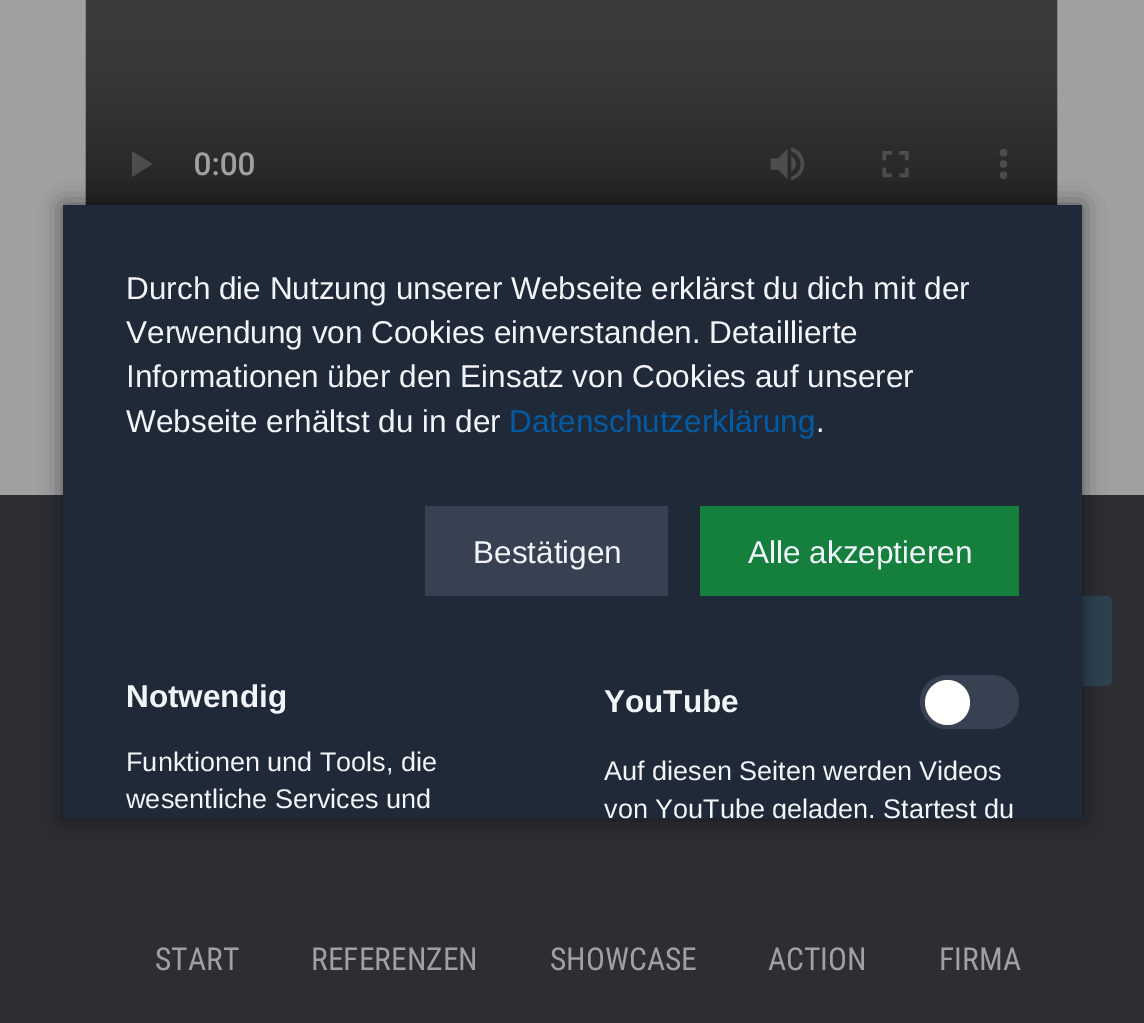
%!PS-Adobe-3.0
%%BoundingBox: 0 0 1144 1023
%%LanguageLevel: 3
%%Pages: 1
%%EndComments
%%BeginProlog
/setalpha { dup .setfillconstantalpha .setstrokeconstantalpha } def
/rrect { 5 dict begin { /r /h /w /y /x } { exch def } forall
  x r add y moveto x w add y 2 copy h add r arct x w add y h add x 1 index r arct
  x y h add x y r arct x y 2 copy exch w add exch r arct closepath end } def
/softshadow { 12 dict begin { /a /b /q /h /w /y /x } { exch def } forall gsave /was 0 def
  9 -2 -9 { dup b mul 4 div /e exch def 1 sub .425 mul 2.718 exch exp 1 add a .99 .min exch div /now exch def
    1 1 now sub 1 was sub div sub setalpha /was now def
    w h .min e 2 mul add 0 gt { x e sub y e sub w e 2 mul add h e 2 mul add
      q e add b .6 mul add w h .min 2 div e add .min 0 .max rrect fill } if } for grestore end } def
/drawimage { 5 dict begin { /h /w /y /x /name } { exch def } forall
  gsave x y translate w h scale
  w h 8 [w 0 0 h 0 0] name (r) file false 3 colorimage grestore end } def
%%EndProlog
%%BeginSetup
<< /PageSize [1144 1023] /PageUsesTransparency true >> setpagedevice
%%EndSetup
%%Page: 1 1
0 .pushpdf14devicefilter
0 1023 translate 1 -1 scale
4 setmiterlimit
0.627 setgray
0 0 1144 1023 rectfill
(images/1.raw) 85 0 973 205 drawimage
0.173 0.18 0.204 setrgbcolor
0 495 1144 528 rectfill
0.18 0.255 0.31 setrgbcolor
1022 596 90 90 5 rrect fill
0 setgray
63 205 1019 614 0 11 0.5 softshadow
0.122 0.161 0.216 setrgbcolor
63 205 1019 614 rectfill
0.216 0.255 0.318 setrgbcolor
425 506 243 90 rectfill
0.082 0.502 0.239 setrgbcolor
700 506 319 90 rectfill
0.216 0.255 0.318 setrgbcolor
920 675 99 54 27 rrect fill
1 setgray
newpath 947.5 702.5 22.5 0 360 arc closepath fill
/LiberationSans-Regular [31.5 0 0 -31.5 0 0] selectfont
0.945 0.961 0.976 setrgbcolor
126 299 moveto (Durch die Nutzung unserer Webseite erklärst du dich mit der) show
126 343 moveto (Verwendung von Cookies einverstanden. Detaillierte) show
126 387 moveto (Informationen über den Einsatz von Cookies auf unserer) show
126 432 moveto (Webseite erhältst du in der) show
0.016 0.353 0.639 setrgbcolor
509 432 moveto (Datenschutzerklärung) show
0.945 0.961 0.976 setrgbcolor
816 432 moveto (.) show
473 563 moveto (Bestätigen) show
748 563 moveto (Alle akzeptieren) show
/LiberationSans-Bold [31.5 0 0 -31.5 0 0] selectfont
126 707 moveto (Notwendig) show
/LiberationSans-Regular [27 0 0 -27 0 0] selectfont
126 771 moveto (Funktionen und Tools, die) show
126 808 moveto (wesentliche Services und) show
/LiberationSans-Bold [31.5 0 0 -31.5 0 0] selectfont
604 712 moveto (YouTube) show
/LiberationSans-Regular [27 0 0 -27 0 0] selectfont
604 780 moveto (Auf diesen Seiten werden Videos) show
gsave
63 205 1019 614 rectclip
604 818 moveto (von YouTube geladen. Startest du) show
grestore
/RobotoCondensed-Regular [31.5 0 0 -31.5 0 0] selectfont
0.627 setgray
155 970 moveto (START) show
311 970 moveto (REFERENZEN) show
550 970 moveto (SHOWCASE) show
768 970 moveto (ACTION) show
939 970 moveto (FIRMA) show
.poppdf14devicefilter showpage
%%EOF
